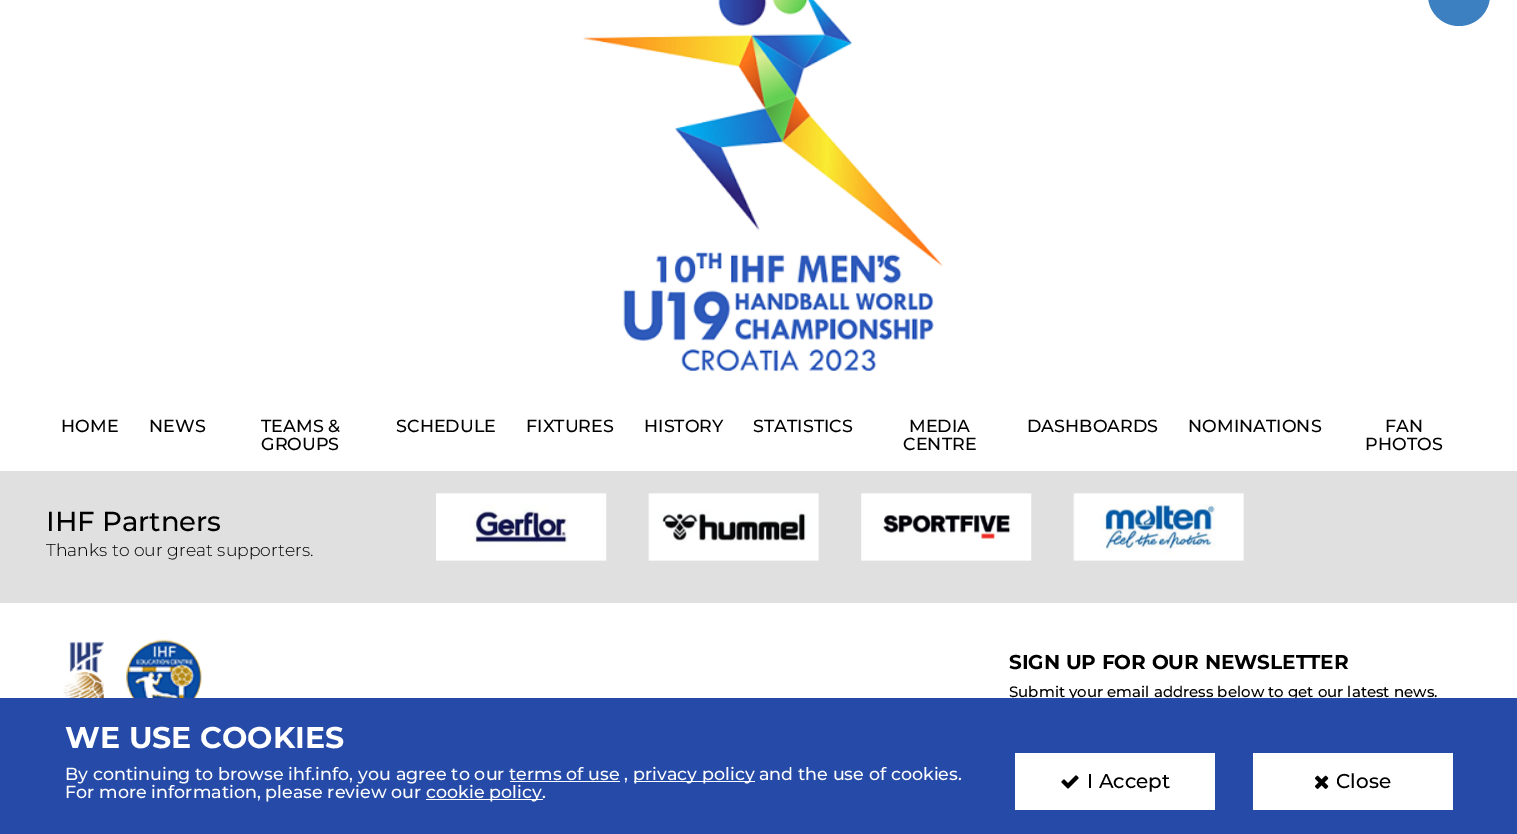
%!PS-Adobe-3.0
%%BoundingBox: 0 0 1517 834
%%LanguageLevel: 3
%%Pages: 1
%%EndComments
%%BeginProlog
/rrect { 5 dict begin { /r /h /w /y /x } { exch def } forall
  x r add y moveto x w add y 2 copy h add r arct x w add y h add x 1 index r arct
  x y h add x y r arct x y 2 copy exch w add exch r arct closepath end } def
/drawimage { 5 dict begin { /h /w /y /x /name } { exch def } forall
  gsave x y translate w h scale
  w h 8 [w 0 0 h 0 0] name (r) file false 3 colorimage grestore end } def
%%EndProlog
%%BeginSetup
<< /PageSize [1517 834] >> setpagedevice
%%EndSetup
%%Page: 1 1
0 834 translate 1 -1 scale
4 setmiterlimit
1 setgray
0 0 1517 834 rectfill
(images/1.raw) 582 0 361 371 drawimage
0.235 0.502 0.757 setrgbcolor
1428 -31 62 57 31 rrect fill
0.878 setgray
0 471 1517 132 rectfill
(images/2.raw) 436 493 171 68 drawimage
(images/3.raw) 648 493 171 68 drawimage
(images/4.raw) 861 493 171 68 drawimage
(images/5.raw) 1073 493 171 68 drawimage
(images/6.raw) 63 641 41 57 drawimage
(images/7.raw) 126 639 76 59 drawimage
/Montserrat-Medium [17.5 0 0 -17.5 0 0] selectfont
0 setgray
61 432 moveto (HOME) show
149 432 moveto (NEWS) show
261 432 moveto (TEAMS &) show
261 450 moveto (GROUPS) show
396 432 moveto (SCHEDULE) show
526 432 moveto (FIXTURES) show
644 432 moveto (HISTORY) show
753 432 moveto (STATISTICS) show
909 432 moveto (MEDIA) show
903 450 moveto (CENTRE) show
1027 432 moveto (DASHBOARDS) show
1188 432 moveto (NOMINATIONS) show
1385 432 moveto (FAN) show
1365 450 moveto (PHOTOS) show
/Montserrat-Medium [27.5 0 0 -27.5 0 0] selectfont
46 531 moveto (IHF Partners) show
/Montserrat-Light [17.25 0 0 -17.25 0 0] selectfont
46 556 moveto (Thanks to our great supporters.) show
/Montserrat-Bold [20 0 0 -20 0 0] selectfont
1009 669 moveto (SIGN UP FOR OUR NEWSLETTER) show
/Montserrat-Medium [15 0 0 -15 0 0] selectfont
1009 697 moveto (Submit your email address below to get our latest news.) show
0.149 0.29 0.659 setrgbcolor
0 698 1517 136 rectfill
/Montserrat-Bold [30 0 0 -30 0 0] selectfont
1 setgray
65 748 moveto (WE USE COOKIES) show
/Montserrat-Medium [17.5 0 0 -17.5 0 0] selectfont
65 780 moveto (By continuing to browse ihf.info, you agree to our terms of use ,) show
634 781 121 1 rectfill
633 780 moveto (privacy policy and the use of cookies.) show
510 781 110 1 rectfill
65 798 moveto (For more information, please review our) show
426 799 117 1 rectfill
426 798 moveto (cookie policy.) show
1015 753 200 57 rectfill
(images/8.raw) 1061 775 18 14 drawimage
/Montserrat-Medium [20 0 0 -20 0 0] selectfont
0 setgray
1087 788 moveto (I Accept) show
1 setgray
1253 753 200 57 rectfill
(images/9.raw) 1315 775 14 14 drawimage
0 setgray
1336 788 moveto (Close) show
showpage
%%EOF
